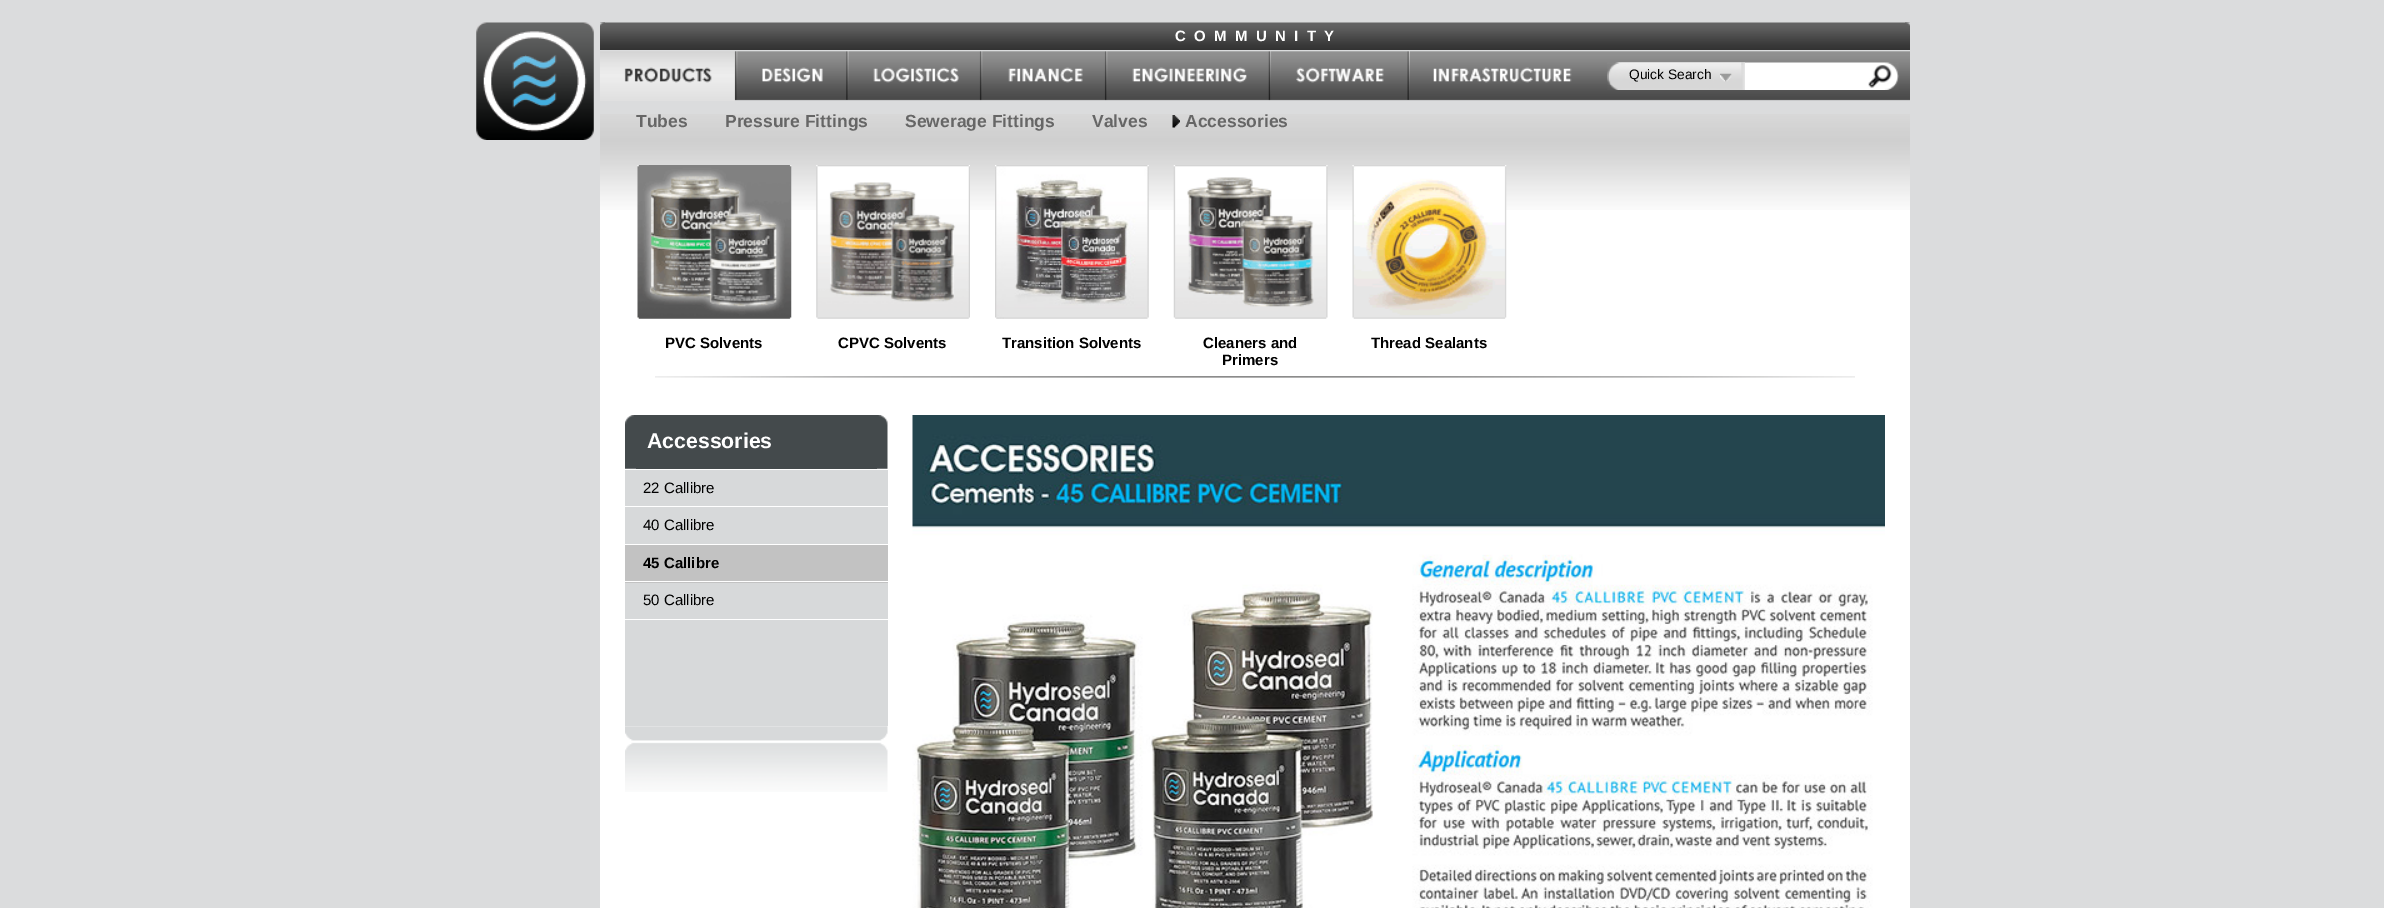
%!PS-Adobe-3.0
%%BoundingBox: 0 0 2384 908
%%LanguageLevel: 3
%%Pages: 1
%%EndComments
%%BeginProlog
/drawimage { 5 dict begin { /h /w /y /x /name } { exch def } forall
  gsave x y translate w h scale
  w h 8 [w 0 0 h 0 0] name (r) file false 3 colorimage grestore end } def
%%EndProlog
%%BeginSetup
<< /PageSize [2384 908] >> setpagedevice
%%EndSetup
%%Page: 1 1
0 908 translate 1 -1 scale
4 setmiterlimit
0.859 0.863 0.867 setrgbcolor
0 0 2384 908 rectfill
(images/1.raw) 476 22 118 118 drawimage
(images/2.raw) 600 22 1310 28 drawimage
(images/3.raw) 600 22 5 4 drawimage
(images/4.raw) 1905 22 5 4 drawimage
(images/5.raw) 737 51 1173 50 drawimage
(images/6.raw) 600 51 138 50 drawimage
(images/7.raw) 737 51 112 49 drawimage
(images/8.raw) 848 51 135 50 drawimage
(images/9.raw) 982 51 126 50 drawimage
(images/10.raw) 1107 51 165 50 drawimage
(images/11.raw) 1271 51 139 49 drawimage
(images/12.raw) 1433 67 139 16 drawimage
(images/13.raw) 1607 62 292 28 drawimage
(images/14.raw) 1607 62 138 28 drawimage
(images/15.raw) 1720 73 12 9 drawimage
(images/16.raw) 1868 65 24 23 drawimage
(images/17.raw) 600 114 1310 26 drawimage
(images/18.raw) 1172 115 8 13 drawimage
1 setgray
600 210 1310 698 rectfill
(images/19.raw) 600 140 1310 70 drawimage
(images/20.raw) 637 165 155 154 drawimage
(images/21.raw) 816 165 154 154 drawimage
(images/22.raw) 995 165 154 154 drawimage
(images/23.raw) 1173 165 155 154 drawimage
(images/24.raw) 1352 165 155 154 drawimage
(images/25.raw) 655 376 1200 2 drawimage
(images/26.raw) 625 415 11 54 drawimage
0.267 0.29 0.298 setrgbcolor
636 415 241 54 rectfill
(images/27.raw) 877 415 11 54 drawimage
0.843 0.851 0.855 setrgbcolor
625 470 263 256 rectfill
1 setgray
625 506 263 1 rectfill
625 544 263 1 rectfill
0.761 setgray
625 545 263 38 rectfill
1 setgray
625 581 263 1 rectfill
625 619 263 1 rectfill
(images/28.raw) 625 726 263 66 drawimage
(images/29.raw) 912 415 973 493 drawimage
/LiberationSans-Bold [15 0 0 -15 0 0] selectfont
1175 41 moveto (C  O  M  M  U  N  I  T  Y) show
/LiberationSans-Regular [13.75 0 0 -13.75 0 0] selectfont
0 setgray
1629 79 moveto (Quick Search) show
/LiberationSans-Bold [17.5 0 0 -17.5 0 0] selectfont
0.4 setgray
636 127 moveto (Tubes) show
725 127 moveto (Pressure Fittings) show
905 127 moveto (Sewerage Fittings) show
1092 127 moveto (Valves) show
1185 127 moveto (Accessories) show
/LiberationSans-Bold [15 0 0 -15 0 0] selectfont
0 setgray
665 348 moveto (PVC Solvents) show
838 348 moveto (CPVC Solvents) show
1002 348 moveto (Transition Solvents) show
1203 348 moveto (Cleaners and) show
1222 365 moveto (Primers) show
1371 348 moveto (Thread Sealants) show
/LiberationSans-Bold [21.25 0 0 -21.25 0 0] selectfont
1 setgray
647 448 moveto (Accessories) show
/LiberationSans-Regular [15 0 0 -15 0 0] selectfont
0 setgray
643 493 moveto (22 Callibre) show
643 530 moveto (40 Callibre) show
/LiberationSans-Bold [15 0 0 -15 0 0] selectfont
643 568 moveto (45 Callibre) show
/LiberationSans-Regular [15 0 0 -15 0 0] selectfont
643 605 moveto (50 Callibre) show
showpage
%%EOF
